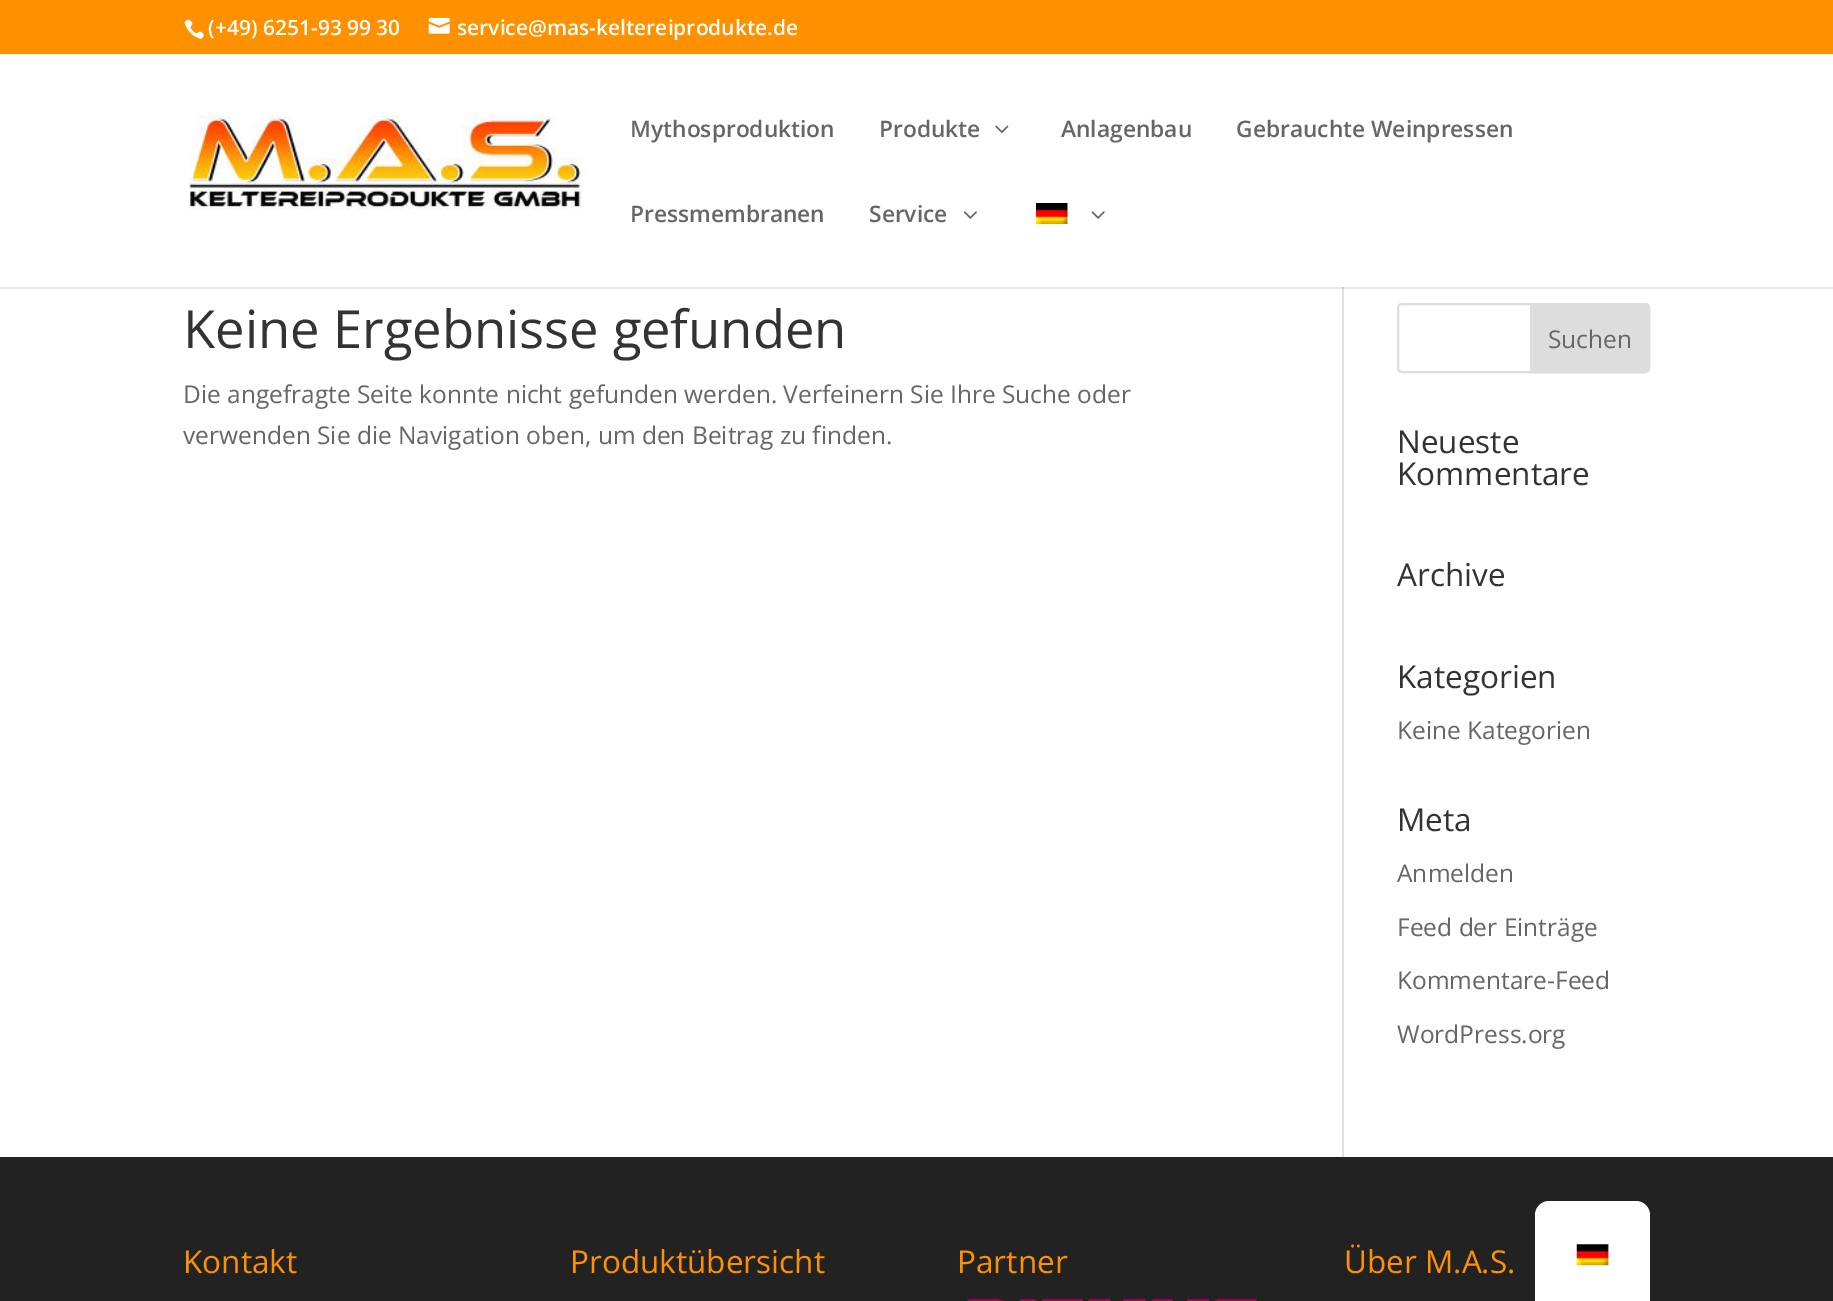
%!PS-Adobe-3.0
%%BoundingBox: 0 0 1833 1301
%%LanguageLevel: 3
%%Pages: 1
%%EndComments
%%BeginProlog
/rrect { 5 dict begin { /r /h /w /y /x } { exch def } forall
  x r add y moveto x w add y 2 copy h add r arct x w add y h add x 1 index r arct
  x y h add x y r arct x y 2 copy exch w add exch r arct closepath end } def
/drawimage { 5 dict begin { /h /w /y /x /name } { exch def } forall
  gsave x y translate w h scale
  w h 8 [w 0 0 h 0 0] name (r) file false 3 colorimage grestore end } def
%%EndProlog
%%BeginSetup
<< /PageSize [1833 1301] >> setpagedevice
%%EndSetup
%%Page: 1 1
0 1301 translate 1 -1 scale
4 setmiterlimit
1 setgray
0 0 1833 1301 rectfill
0.902 setgray
0 287 1833 2 rectfill
1 0.565 0 setrgbcolor
0 0 1833 54 rectfill
(images/1.raw) 184 19 20 20 drawimage
(images/2.raw) 428 17 22 17 drawimage
(images/3.raw) 189 115 394 95 drawimage
(images/4.raw) 995 125 14 8 drawimage
(images/5.raw) 963 211 14 8 drawimage
(images/6.raw) 1036 203 32 21 drawimage
(images/7.raw) 1091 211 14 8 drawimage
0.886 setgray
1342 289 2 868 rectfill
0.796 setgray
1342 287 2 2 rectfill
0.867 setgray
2 setlinewidth
1398 304 251 68 4 rrect stroke
newpath 1531 304 moveto 1645 304 lineto 1647 304 1649 306 1649 308 curveto 1649 368 lineto 1649 370 1647 372 1645 372 curveto 1531 372 lineto closepath gsave fill grestore
stroke
0.133 setgray
0 1157 1833 144 rectfill
(images/8.raw) 966 1298 291 3 drawimage
1 setgray
newpath 1549 1201 moveto 1636 1201 lineto 1643.5 1201 1650 1207.5 1650 1215 curveto 1650 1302 lineto 1535 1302 lineto 1535 1215 lineto 1535 1207.5 1541.5 1201 1549 1201 curveto closepath fill
(images/9.raw) 1576 1244 33 22 drawimage
/OpenSans-SemiBold [21 0 0 -21 0 0] selectfont
208 35 moveto (\(+49\) 6251-93 99 30) show
457 35 moveto (service@mas-keltereiprodukte.de) show
/OpenSans-SemiBold [22.75 0 0 -22.75 0 0] selectfont
0.4 setgray
630 137 moveto (Mythosproduktion) show
879 137 moveto (Produkte) show
1061 137 moveto (Anlagenbau) show
1236 137 moveto (Gebrauchte Weinpressen) show
630 222 moveto (Pressmembranen) show
869 222 moveto (Service) show
/OpenSans-Regular [52.5 0 0 -52.5 0 0] selectfont
0.2 setgray
183 348 moveto (Keine Ergebnisse gefunden) show
/OpenSans-Regular [24.5 0 0 -24.5 0 0] selectfont
0.4 setgray
183 403 moveto (Die angefragte Seite konnte nicht gefunden werden. Verfeinern Sie Ihre Suche oder) show
183 444 moveto (verwenden Sie die Navigation oben, um den Beitrag zu finden.) show
1548 348 moveto (Suchen) show
/OpenSans-Regular [31.5 0 0 -31.5 0 0] selectfont
0.2 setgray
1397 453 moveto (Neueste) show
1397 485 moveto (Kommentare) show
1397 586 moveto (Archive) show
1397 688 moveto (Kategorien) show
/OpenSans-Regular [24.5 0 0 -24.5 0 0] selectfont
0.4 setgray
1397 739 moveto (Keine Kategorien) show
/OpenSans-Regular [31.5 0 0 -31.5 0 0] selectfont
0.2 setgray
1397 831 moveto (Meta) show
/OpenSans-Regular [24.5 0 0 -24.5 0 0] selectfont
0.4 setgray
1397 882 moveto (Anmelden) show
1397 936 moveto (Feed der Einträge) show
1397 989 moveto (Kommentare-Feed) show
1397 1043 moveto (WordPress.org) show
/OpenSans-Regular [31.5 0 0 -31.5 0 0] selectfont
1 0.565 0 setrgbcolor
183 1273 moveto (Kontakt) show
570 1273 moveto (Produktübersicht) show
957 1273 moveto (Partner) show
1344 1273 moveto (Über M.A.S.) show
showpage
%%EOF
